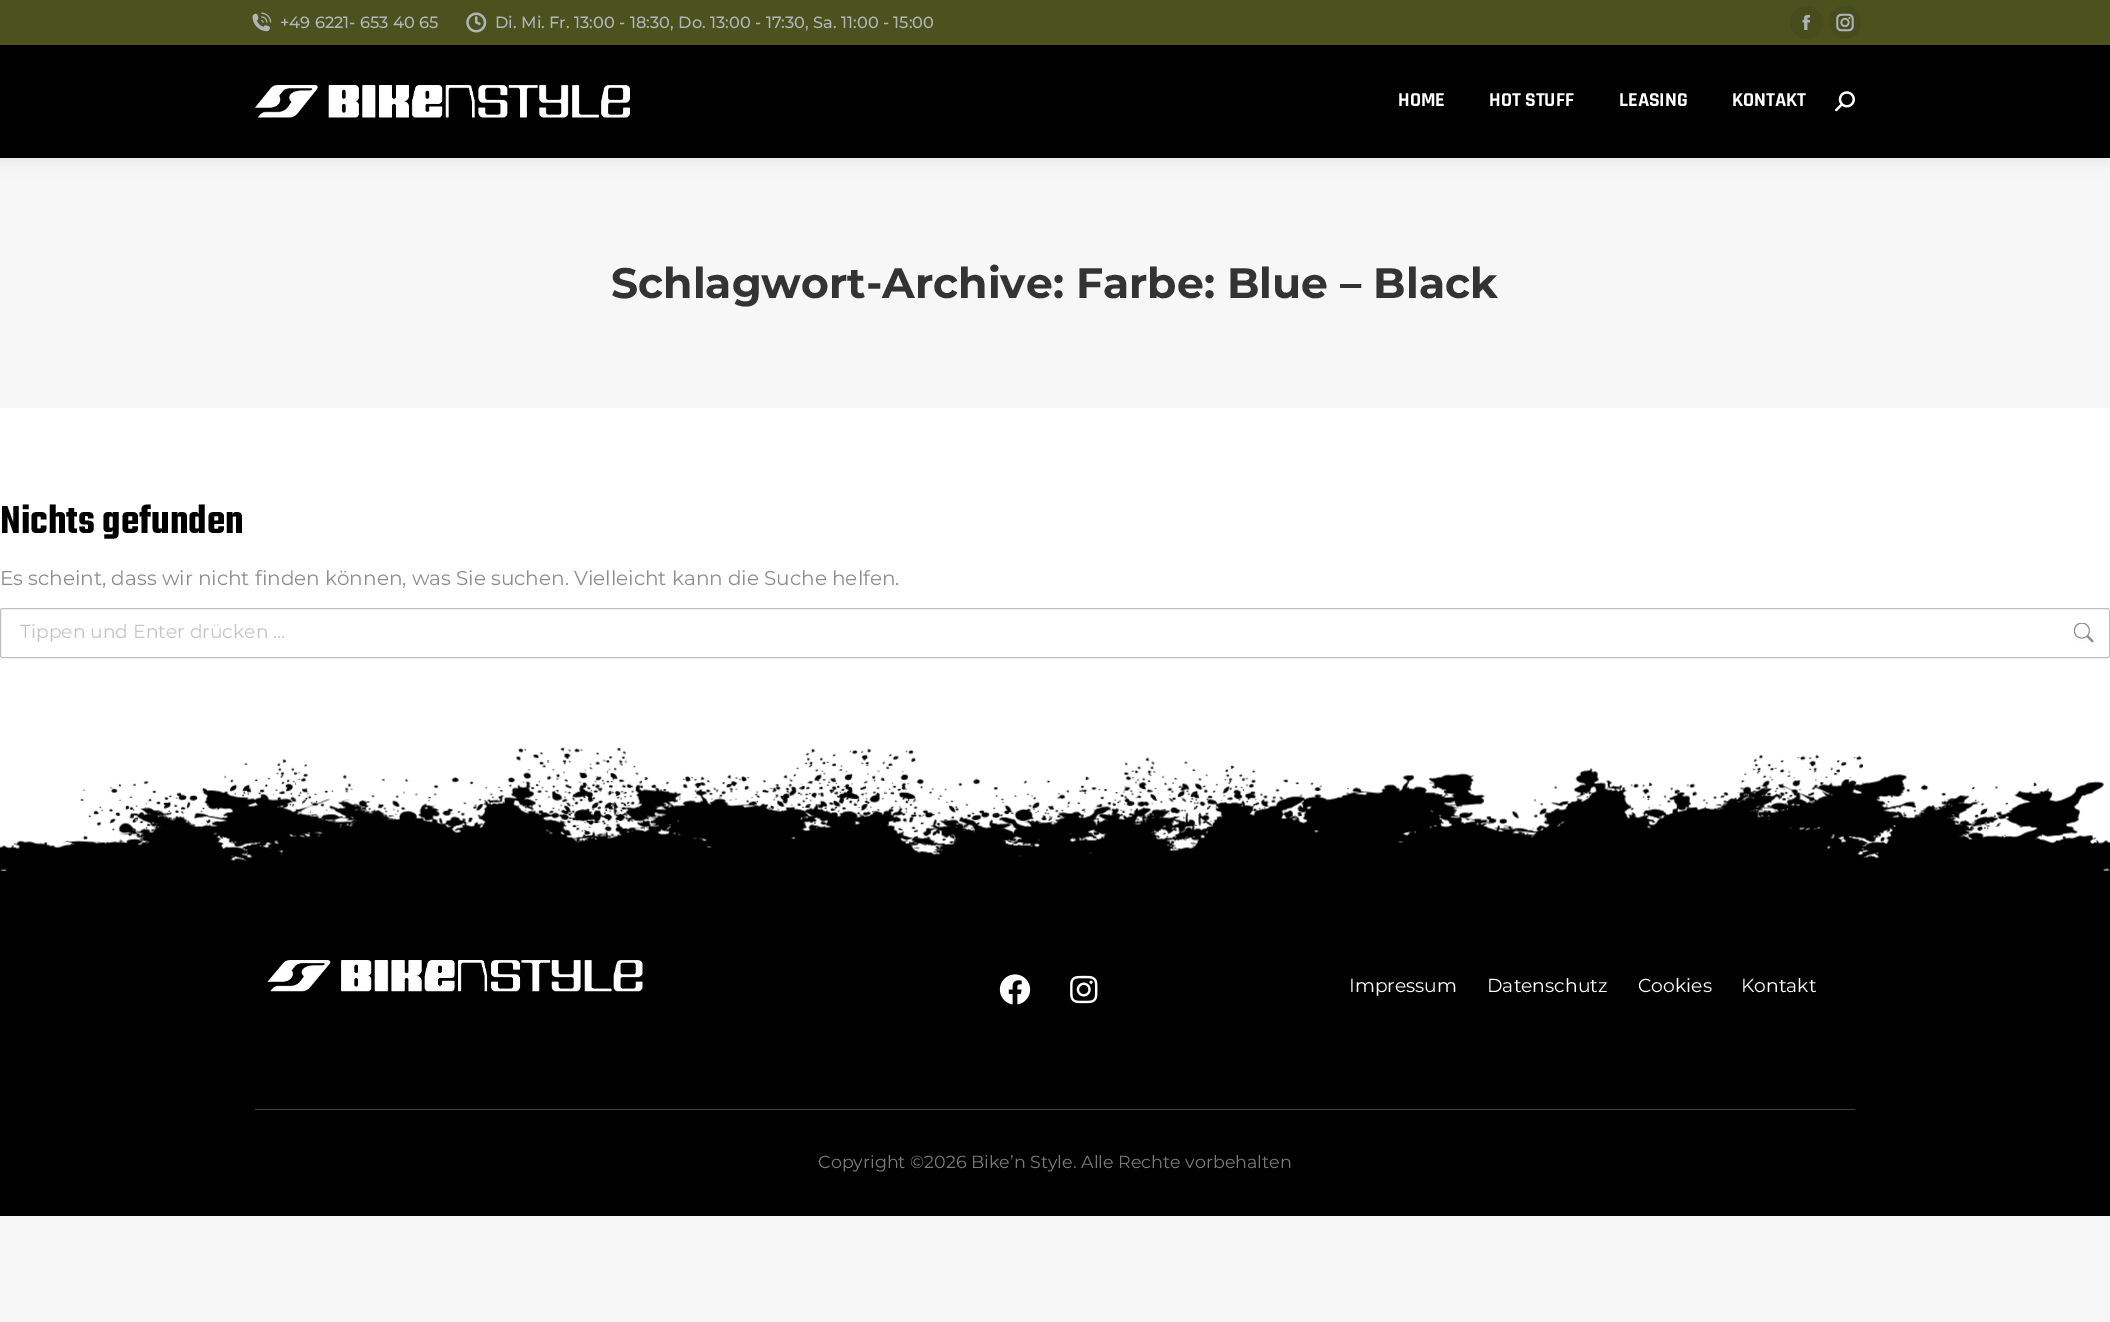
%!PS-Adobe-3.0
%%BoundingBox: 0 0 2110 1322
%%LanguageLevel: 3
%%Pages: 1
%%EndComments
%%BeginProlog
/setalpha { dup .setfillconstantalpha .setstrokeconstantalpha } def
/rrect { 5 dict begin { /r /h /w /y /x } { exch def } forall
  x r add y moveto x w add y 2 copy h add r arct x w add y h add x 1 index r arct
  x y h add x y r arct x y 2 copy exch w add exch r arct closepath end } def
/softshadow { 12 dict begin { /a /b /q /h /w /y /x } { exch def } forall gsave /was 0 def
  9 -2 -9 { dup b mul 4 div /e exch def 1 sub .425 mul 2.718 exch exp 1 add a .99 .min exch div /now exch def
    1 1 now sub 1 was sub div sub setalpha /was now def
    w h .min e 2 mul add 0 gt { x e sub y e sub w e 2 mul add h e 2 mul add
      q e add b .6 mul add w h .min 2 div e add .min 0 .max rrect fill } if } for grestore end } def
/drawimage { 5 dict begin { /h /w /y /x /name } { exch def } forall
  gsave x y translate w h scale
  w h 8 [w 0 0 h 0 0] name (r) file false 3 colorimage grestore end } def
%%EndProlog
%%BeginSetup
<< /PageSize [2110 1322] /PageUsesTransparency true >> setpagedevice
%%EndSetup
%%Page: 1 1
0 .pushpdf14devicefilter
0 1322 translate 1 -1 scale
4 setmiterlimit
0.969 setgray
0 0 2110 1322 rectfill
1 setgray
0 408 2110 463 rectfill
0 setgray
-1 -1 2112 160 0 9.5 0.07 softshadow
0 45 2110 113 rectfill
0.294 0.322 0.118 setrgbcolor
0 0 2110 44 rectfill
(images/1.raw) 252 12 20 20 drawimage
(images/2.raw) 466 12 21 21 drawimage
0.275 0.298 0.11 setrgbcolor
newpath 1806.5 22.5 16.5 0 360 arc closepath fill
(images/3.raw) 1802 15 8 15 drawimage
1829 6 32 33 16 rrect fill
(images/4.raw) 1836 13 18 19 drawimage
0.282 0.31 0.125 setrgbcolor
0 44 2110 1 rectfill
(images/5.raw) 255 85 375 33 drawimage
(images/6.raw) 1835 91 20 21 drawimage
0.753 setgray
0.5 608.5 2109 49 2 rrect stroke
(images/7.raw) 2074 623 20 20 drawimage
(images/8.raw) 0 747 2110 124 drawimage
0 setgray
0 871 2110 345 rectfill
(images/9.raw) 267 960 376 32 drawimage
(images/10.raw) 999 974 32 31 drawimage
(images/11.raw) 1070 975 28 29 drawimage
0.251 setgray
255 1109 1600 1 rectfill
/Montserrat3-Thin [16.25 0 0 -16.25 0 0] selectfont
0.694 0.706 0.722 setrgbcolor
280 28 moveto (+49 6221- 653 40 65) show
495 28 moveto (Di. Mi. Fr. 13:00 - 18:30, Do. 13:00 - 17:30, Sa. 11:00 - 15:00) show
/Rajdhani-Bold [20 0 0 -20 0 0] selectfont
1 setgray
1398 106 moveto (HOME) show
1489 106 moveto (HOT STUFF) show
1619 106 moveto (LEASING) show
1732 106 moveto (KONTAKT) show
/Montserrat-Thin [42.5 0 0 -42.5 0 0] selectfont
0.2 setgray
611 298 moveto (Schlagwort-Archive: Farbe: Blue – Black) show
/Teko-SemiBold [42.5 0 0 -42.5 0 0] selectfont
0 setgray
0 533 moveto (Nichts gefunden) show
/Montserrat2-Thin [20 0 0 -20 0 0] selectfont
0.545 0.553 0.58 setrgbcolor
0 585 moveto (Es scheint, dass wir nicht finden können, was Sie suchen. Vielleicht kann die Suche helfen.) show
/Montserrat2-Thin [18.75 0 0 -18.75 0 0] selectfont
0.769 0.773 0.788 setrgbcolor
20 638 moveto (Tippen und Enter drücken …) show
1 setgray
1349 992 moveto (Impressum) show
1487 992 moveto (Datenschutz) show
1638 992 moveto (Cookies) show
1741 992 moveto (Kontakt) show
/Montserrat2-Thin [17.5 0 0 -17.5 0 0] selectfont
0.478 setgray
818 1168 moveto (Copyright ©2026 Bike’n Style. Alle Rechte vorbehalten) show
.poppdf14devicefilter showpage
%%EOF
